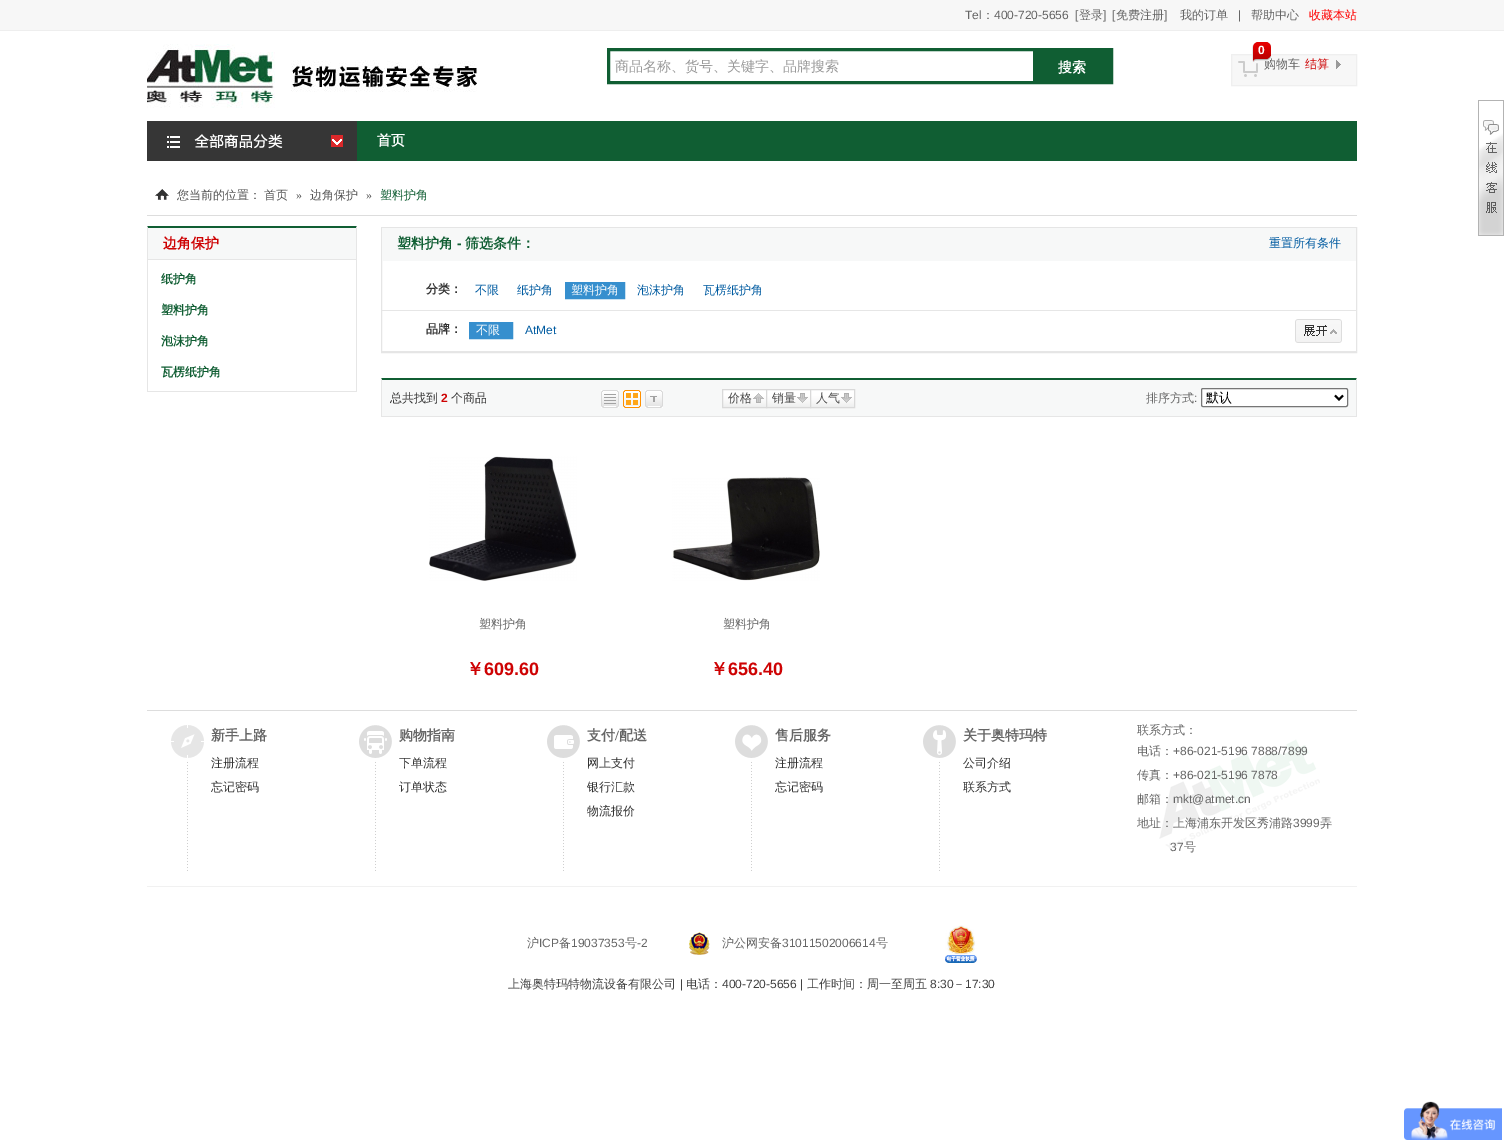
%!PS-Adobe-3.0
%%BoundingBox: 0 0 1504 1147
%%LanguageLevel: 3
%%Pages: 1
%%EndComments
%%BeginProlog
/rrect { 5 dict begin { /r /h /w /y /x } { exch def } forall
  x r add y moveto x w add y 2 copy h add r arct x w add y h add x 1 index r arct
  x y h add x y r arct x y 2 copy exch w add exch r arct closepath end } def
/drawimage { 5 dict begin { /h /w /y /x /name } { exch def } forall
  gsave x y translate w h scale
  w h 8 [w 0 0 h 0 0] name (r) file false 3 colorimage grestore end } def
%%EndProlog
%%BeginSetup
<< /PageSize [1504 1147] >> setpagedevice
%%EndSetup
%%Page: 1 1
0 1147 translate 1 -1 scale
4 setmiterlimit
1 setgray
0 0 1504 1147 rectfill
0.969 setgray
0 0 1504 30 rectfill
0.933 setgray
0 30 1504 1 rectfill
(images/1.raw) 147 44 330 64 drawimage
0.063 0.369 0.2 setrgbcolor
3 setlinewidth
608.5 49.5 503 33 rectstroke
1033 51 77 30 rectfill
0.969 setgray
1232 55 124 30 rectfill
(images/2.raw) 1238 61 20 16 drawimage
0.937 setgray
1 setlinewidth
1231.5 54.5 125 31 rectstroke
(images/3.raw) 1252 42 8 20 drawimage
(images/5.raw) 1336 60 5 9 drawimage
0.063 0.369 0.2 setrgbcolor
357 121 1000 40 rectfill
(images/6.raw) 147 121 210 40 drawimage
(images/7.raw) 331 135 12 12 drawimage
(images/8.raw) 155 189 14 11 drawimage
0.867 setgray
147 215 1210 1 rectfill
0.063 0.369 0.2 setrgbcolor
newpath 147 226 moveto 357 226 lineto 356 228 lineto 148 228 lineto closepath fill
0.902 setgray
newpath 357 226 moveto 357 392 lineto 356 391 lineto 356 228 lineto closepath fill
147 391 210 1 rectfill
newpath 147 392 moveto 147 226 lineto 148 228 lineto 148 391 lineto closepath fill
0.969 0.973 0.973 setrgbcolor
148 228 208 31 rectfill
0.902 setgray
148 259 208 1 rectfill
0.898 setgray
381.5 227.5 975 125 rectstroke
0.969 0.973 0.973 setrgbcolor
382 228 974 33 rectfill
0.902 setgray
382 310 975 1 rectfill
0.212 0.561 0.808 setrgbcolor
565.5 282.5 59 16 rectstroke
566 283 58 15 rectfill
0.902 setgray
382 351 975 1 rectfill
0.212 0.561 0.808 setrgbcolor
469.5 322.5 43 16 rectstroke
470 323 42 15 rectfill
(images/9.raw) 1295 319 47 24 drawimage
0.969 0.973 0.973 setrgbcolor
382 380 974 36 rectfill
0.063 0.369 0.2 setrgbcolor
newpath 381 378 moveto 1357 378 lineto 1356 380 lineto 382 380 lineto closepath fill
0.902 setgray
newpath 1357 378 moveto 1357 417 lineto 1356 416 lineto 1356 380 lineto closepath fill
381 416 976 1 rectfill
newpath 381 417 moveto 381 378 lineto 382 380 lineto 382 416 lineto closepath fill
(images/10.raw) 601 390 18 18 drawimage
(images/11.raw) 623 390 18 18 drawimage
(images/12.raw) 645 390 18 18 drawimage
(images/13.raw) 723 390 43 17 drawimage
0.851 setgray
722.5 389.5 44 18 rectstroke
(images/14.raw) 753 393 11 10 drawimage
(images/13.raw) 767 390 43 17 drawimage
766.5 389.5 44 18 rectstroke
(images/15.raw) 797 393 11 10 drawimage
(images/13.raw) 811 390 43 17 drawimage
810.5 389.5 44 18 rectstroke
(images/15.raw) 841 393 11 10 drawimage
1 setgray
1201.5 388.5 146 18 1.5 rrect gsave fill grestore
0.463 setgray
stroke
0 setgray
2 setlinewidth
newpath 1335 395.5 moveto 1339 399.5 lineto 1343 395.5 lineto stroke
(images/16.raw) 429 456 148 125 drawimage
(images/17.raw) 672 477 148 104 drawimage
0.867 setgray
147 710 1210 1 rectfill
0.945 setgray
147 886 1210 1 rectfill
(images/18.raw) 171 725 33 35 drawimage
(images/19.raw) 187 760 1 111 drawimage
(images/20.raw) 359 725 33 35 drawimage
(images/19.raw) 375 760 1 111 drawimage
(images/21.raw) 547 725 33 35 drawimage
(images/19.raw) 563 760 1 111 drawimage
(images/22.raw) 735 725 33 35 drawimage
(images/19.raw) 751 760 1 111 drawimage
(images/23.raw) 923 725 33 35 drawimage
(images/19.raw) 939 760 1 111 drawimage
(images/24.raw) 1159 739 161 110 drawimage
(images/25.raw) 1478 100 26 136 drawimage
(images/26.raw) 689 932 21 23 drawimage
(images/27.raw) 945 925 32 38 drawimage
(images/28.raw) 1404 1101 98 39 drawimage
/LiberationSans-Regular [12 0 0 -12 0 0] selectfont
0.4 setgray
965 19 moveto (Tel) show
/WenQuanYiZenHei-Medium [12 0 0 -12 0 0] selectfont
982 19 moveto (：) show
/LiberationSans-Regular [12 0 0 -12 0 0] selectfont
994 19 moveto (400-720-5656) show
1075 19 moveto ([) show
/WenQuanYiZenHei-Medium [12 0 0 -12 0 0] selectfont
1079 19 moveto (登录) show
/LiberationSans-Regular [12 0 0 -12 0 0] selectfont
1103 19 moveto (]) show
1112 19 moveto ([) show
/WenQuanYiZenHei-Medium [12 0 0 -12 0 0] selectfont
1116 19 moveto (免费注册) show
/LiberationSans-Regular [12 0 0 -12 0 0] selectfont
1164 19 moveto (]) show
/WenQuanYiZenHei-Medium [12 0 0 -12 0 0] selectfont
1180 19 moveto (我的订单) show
/LiberationSans-Regular [12 0 0 -12 0 0] selectfont
1238 19 moveto (|) show
/WenQuanYiZenHei-Medium [12 0 0 -12 0 0] selectfont
1251 19 moveto (帮助中心) show
1 0 0 setrgbcolor
1309 19 moveto (收藏本站) show
/WenQuanYiZenHei-Medium [14 0 0 -14 0 0] selectfont
0.6 setgray
615 71 moveto (商品名称、货号、关键字、品牌搜索) show
/WenQuanYiZenHei-Bold [14 0 0 -14 0 0] selectfont
1 setgray
1058 72 moveto (搜索) show
/WenQuanYiZenHei-Medium [12 0 0 -12 0 0] selectfont
0.4 setgray
1264 68 moveto (购物车) show
(images/4.raw) 1260 42 11 19 drawimage
/LiberationSans-Bold [12 0 0 -12 0 0] selectfont
1 setgray
1258 54 moveto (0) show
/WenQuanYiZenHei-Medium [12 0 0 -12 0 0] selectfont
0.808 0.008 0.012 setrgbcolor
1305 68 moveto (结算) show
/WenQuanYiZenHei-Bold [14 0 0 -14 0 0] selectfont
1 setgray
377 145 moveto (首页) show
/WenQuanYiZenHei-Medium [12 0 0 -12 0 0] selectfont
0.333 setgray
177 199 moveto (您当前的位置：) show
264 199 moveto (首页) show
/LiberationSerif-Regular [12 0 0 -12 0 0] selectfont
296 199 moveto (») show
/WenQuanYiZenHei-Medium [12 0 0 -12 0 0] selectfont
310 199 moveto (边角保护) show
/LiberationSerif-Regular [12 0 0 -12 0 0] selectfont
366 199 moveto (») show
/WenQuanYiZenHei-Medium [12 0 0 -12 0 0] selectfont
0.063 0.369 0.2 setrgbcolor
380 199 moveto (塑料护角) show
/WenQuanYiZenHei-Bold [14 0 0 -14 0 0] selectfont
0.808 0.008 0.012 setrgbcolor
163 248 moveto (边角保护) show
/WenQuanYiZenHei-Bold [12 0 0 -12 0 0] selectfont
0.063 0.369 0.2 setrgbcolor
161 283 moveto (纸护角) show
161 314 moveto (塑料护角) show
161 345 moveto (泡沫护角) show
161 376 moveto (瓦楞纸护角) show
/WenQuanYiZenHei-Bold [14 0 0 -14 0 0] selectfont
397 248 moveto (塑料护角) show
/LiberationSans-Bold [14 0 0 -14 0 0] selectfont
457 248 moveto (-) show
/WenQuanYiZenHei-Bold [14 0 0 -14 0 0] selectfont
465 248 moveto (筛选条件：) show
/WenQuanYiZenHei-Medium [12 0 0 -12 0 0] selectfont
0 0.357 0.631 setrgbcolor
1269 247 moveto (重置所有条件) show
/WenQuanYiZenHei-Bold [12 0 0 -12 0 0] selectfont
0.2 setgray
426 293 moveto (分类：) show
/WenQuanYiZenHei-Medium [12 0 0 -12 0 0] selectfont
0 0.357 0.631 setrgbcolor
475 294 moveto (不限) show
517 294 moveto (纸护角) show
1 setgray
571 294 moveto (塑料护角) show
0 0.357 0.631 setrgbcolor
637 294 moveto (泡沫护角) show
703 294 moveto (瓦楞纸护角) show
/WenQuanYiZenHei-Bold [12 0 0 -12 0 0] selectfont
0.2 setgray
426 333 moveto (品牌：) show
/WenQuanYiZenHei-Medium [12 0 0 -12 0 0] selectfont
1 setgray
476 334 moveto (不限) show
/LiberationSans-Regular [12 0 0 -12 0 0] selectfont
0 0.357 0.631 setrgbcolor
525 334 moveto (AtMet) show
/WenQuanYiZenHei-Medium [12 0 0 -12 0 0] selectfont
0.2 setgray
390 402 moveto (总共找到) show
/LiberationSans-Bold [12 0 0 -12 0 0] selectfont
0.808 0.008 0.012 setrgbcolor
441 402 moveto (2) show
/WenQuanYiZenHei-Medium [12 0 0 -12 0 0] selectfont
0.2 setgray
451 402 moveto (个商品) show
0.29 setgray
728 402 moveto (价格) show
772 402 moveto (销量) show
816 402 moveto (人气) show
0.4 setgray
1146 402 moveto (排序方式) show
/LiberationSans-Regular [12 0 0 -12 0 0] selectfont
1194 402 moveto (:) show
/WenQuanYiZenHei-Medium [13 0 0 -13 0 0] selectfont
0 setgray
1206 402 moveto (默认) show
/WenQuanYiZenHei-Medium [12 0 0 -12 0 0] selectfont
0.4 setgray
479 628 moveto (塑料护角) show
/WenQuanYiZenHei-Bold [18 0 0 -18 0 0] selectfont
0.808 0.008 0.012 setrgbcolor
466 675 moveto (￥) show
/LiberationSans-Bold [18 0 0 -18 0 0] selectfont
484 675 moveto (609.60) show
/WenQuanYiZenHei-Medium [12 0 0 -12 0 0] selectfont
0.4 setgray
723 628 moveto (塑料护角) show
/WenQuanYiZenHei-Bold [18 0 0 -18 0 0] selectfont
0.808 0.008 0.012 setrgbcolor
710 675 moveto (￥) show
/LiberationSans-Bold [18 0 0 -18 0 0] selectfont
728 675 moveto (656.40) show
/WenQuanYiZenHei-Bold [14 0 0 -14 0 0] selectfont
0.4 setgray
211 740 moveto (新手上路) show
/WenQuanYiZenHei-Medium [12 0 0 -12 0 0] selectfont
0.2 setgray
211 767 moveto (注册流程) show
211 791 moveto (忘记密码) show
/WenQuanYiZenHei-Bold [14 0 0 -14 0 0] selectfont
0.4 setgray
399 740 moveto (购物指南) show
/WenQuanYiZenHei-Medium [12 0 0 -12 0 0] selectfont
0.2 setgray
399 767 moveto (下单流程) show
399 791 moveto (订单状态) show
/WenQuanYiZenHei-Bold [14 0 0 -14 0 0] selectfont
0.4 setgray
587 740 moveto (支付) show
/LiberationSerif-Bold [14 0 0 -14 0 0] selectfont
615 740 moveto (/) show
/WenQuanYiZenHei-Bold [14 0 0 -14 0 0] selectfont
619 740 moveto (配送) show
/WenQuanYiZenHei-Medium [12 0 0 -12 0 0] selectfont
0.2 setgray
587 767 moveto (网上支付) show
587 791 moveto (银行汇款) show
587 815 moveto (物流报价) show
/WenQuanYiZenHei-Bold [14 0 0 -14 0 0] selectfont
0.4 setgray
775 740 moveto (售后服务) show
/WenQuanYiZenHei-Medium [12 0 0 -12 0 0] selectfont
0.2 setgray
775 767 moveto (注册流程) show
775 791 moveto (忘记密码) show
/WenQuanYiZenHei-Bold [14 0 0 -14 0 0] selectfont
0.4 setgray
963 740 moveto (关于奥特玛特) show
/WenQuanYiZenHei-Medium [12 0 0 -12 0 0] selectfont
0.2 setgray
963 767 moveto (公司介绍) show
963 791 moveto (联系方式) show
0.4 setgray
1137 734 moveto (联系方式：) show
1137 755 moveto (电话：) show
/LiberationSans-Regular [12 0 0 -12 0 0] selectfont
1173 755 moveto (+86-021-5196 7888/7899) show
/WenQuanYiZenHei-Medium [12 0 0 -12 0 0] selectfont
1137 779 moveto (传真：) show
/LiberationSans-Regular [12 0 0 -12 0 0] selectfont
1173 779 moveto (+86-021-5196 7878) show
/WenQuanYiZenHei-Medium [12 0 0 -12 0 0] selectfont
1137 803 moveto (邮箱：) show
/LiberationSans-Regular [12 0 0 -12 0 0] selectfont
1173 803 moveto (mkt@atmet.cn) show
/WenQuanYiZenHei-Medium [12 0 0 -12 0 0] selectfont
1137 827 moveto (地址：上海浦东开发区秀浦路) show
/LiberationSans-Regular [12 0 0 -12 0 0] selectfont
1293 827 moveto (3999) show
/WenQuanYiZenHei-Medium [12 0 0 -12 0 0] selectfont
1320 827 moveto (弄) show
/LiberationSans-Regular [12 0 0 -12 0 0] selectfont
1170 851 moveto (37) show
/WenQuanYiZenHei-Medium [12 0 0 -12 0 0] selectfont
1184 851 moveto (号) show
527 947 moveto (沪) show
/LiberationSans-Regular [12 0 0 -12 0 0] selectfont
539 947 moveto (ICP) show
/WenQuanYiZenHei-Medium [12 0 0 -12 0 0] selectfont
559 947 moveto (备) show
/LiberationSans-Regular [12 0 0 -12 0 0] selectfont
571 947 moveto (19037353) show
/WenQuanYiZenHei-Medium [12 0 0 -12 0 0] selectfont
625 947 moveto (号) show
/LiberationSans-Regular [12 0 0 -12 0 0] selectfont
637 947 moveto (-2) show
/WenQuanYiZenHei-Medium [12 0 0 -12 0 0] selectfont
722 947 moveto (沪公网安备) show
/LiberationSans-Regular [12 0 0 -12 0 0] selectfont
782 947 moveto (31011502006614) show
/WenQuanYiZenHei-Medium [12 0 0 -12 0 0] selectfont
876 947 moveto (号) show
0.259 setgray
508 988 moveto (上海奥特玛特物流设备有限公司) show
/LiberationSans-Regular [12 0 0 -12 0 0] selectfont
680 988 moveto (|) show
/WenQuanYiZenHei-Medium [12 0 0 -12 0 0] selectfont
686 988 moveto (电话：) show
/LiberationSans-Regular [12 0 0 -12 0 0] selectfont
722 988 moveto (400-720-5656 |) show
/WenQuanYiZenHei-Medium [12 0 0 -12 0 0] selectfont
807 988 moveto (工作时间：周一至周五) show
/LiberationSans-Regular [12 0 0 -12 0 0] selectfont
930 988 moveto (8:30) show
/WenQuanYiZenHei-Medium [12 0 0 -12 0 0] selectfont
953 988 moveto (－) show
/LiberationSans-Regular [12 0 0 -12 0 0] selectfont
965 988 moveto (17:30) show
showpage
%%EOF
